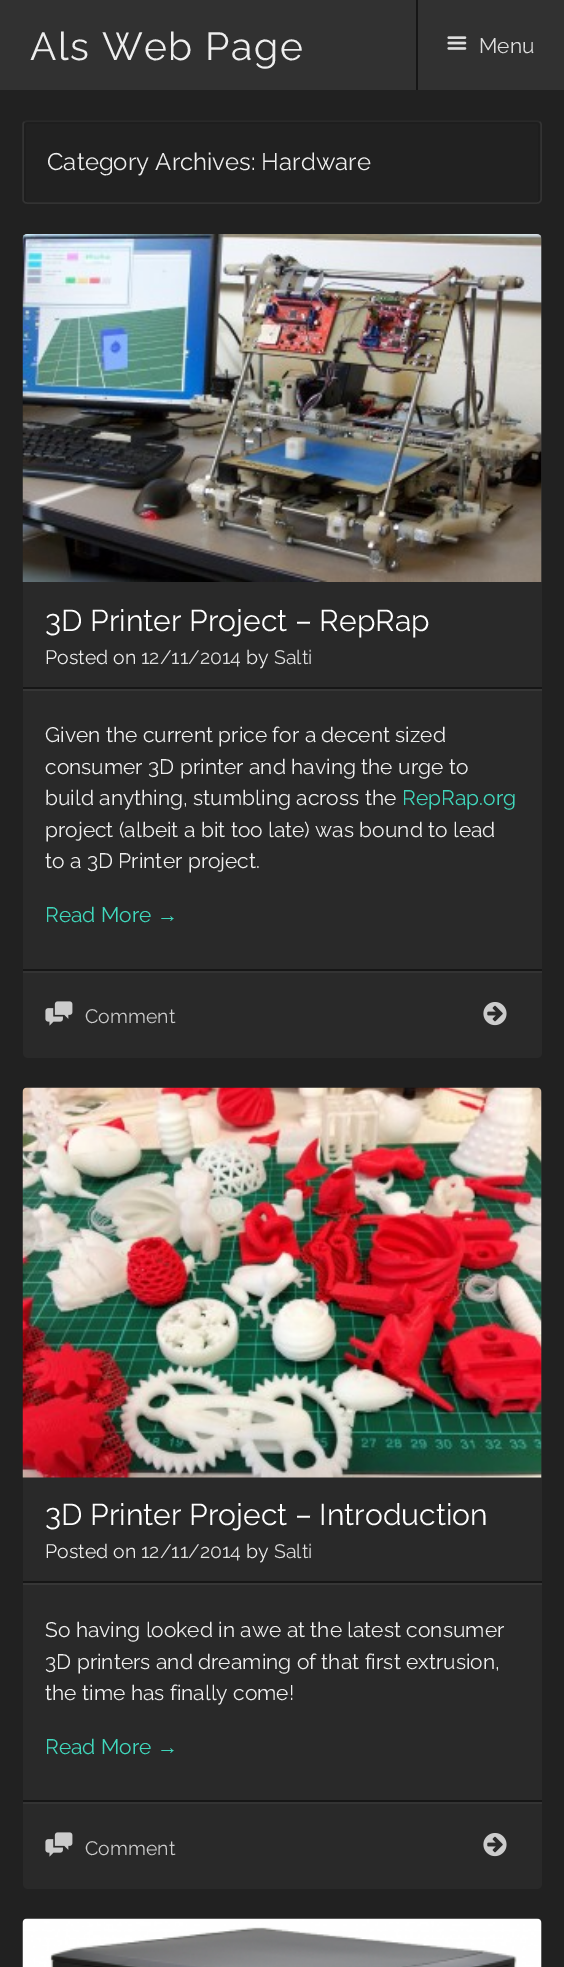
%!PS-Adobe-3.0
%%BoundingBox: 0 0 564 1967
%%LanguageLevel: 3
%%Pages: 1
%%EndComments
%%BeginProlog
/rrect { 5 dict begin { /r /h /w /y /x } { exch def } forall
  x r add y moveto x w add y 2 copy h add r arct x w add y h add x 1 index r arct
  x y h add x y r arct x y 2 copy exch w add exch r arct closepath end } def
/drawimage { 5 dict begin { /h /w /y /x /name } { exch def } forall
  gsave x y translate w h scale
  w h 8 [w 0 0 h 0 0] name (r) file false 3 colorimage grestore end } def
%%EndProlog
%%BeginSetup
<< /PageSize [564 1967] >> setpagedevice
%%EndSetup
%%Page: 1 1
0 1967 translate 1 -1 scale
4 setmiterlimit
0.129 setgray
0 0 564 1967 rectfill
0.192 setgray
0 0 564 90 rectfill
0.086 setgray
416 0 2 90 rectfill
(images/1.raw) 447 36 20 14 drawimage
0.118 setgray
newpath 27 122 moveto 25 122 24 123 24 125 curveto 24 200 lineto 24 202 25 203 27 203 curveto 537 203 lineto 539 203 540 202 540 200 curveto 540 125 lineto 540 123 539 122 537 122 curveto closepath 27 124 moveto 26 124 26 125 26 126 curveto 26 201 lineto 26 202 26 202 27 202 curveto 537 202 lineto 538 202 538 202 538 201 curveto 538 126 lineto 538 125 538 124 537 124 curveto closepath eofill
0.161 setgray
1.5 setlinewidth
newpath 24.5 122 moveto 27 121 lineto 537 121 lineto 539.5 122 lineto stroke
0.2 setgray
newpath 539.5 122 moveto 540.5 122.5 541 123.5 541 124.5 curveto 541 199.5 lineto 541 200.5 540.5 201.5 539.5 202 curveto 539 203 538 203 537 203 curveto 27 203 lineto 26 203 25 203 24.5 202 curveto 23.5 201.5 23 200.5 23 199.5 curveto 23 124.5 lineto 23 123.5 23.5 122.5 24.5 122 curveto stroke
0.161 setgray
23 234 519 824 5 rrect fill
(images/2.raw) 22 234 520 348 drawimage
0.086 setgray
23 687 519 2 rectfill
0.212 setgray
23 689 519 2 rectfill
0.086 setgray
23 969 519 2 rectfill
0.2 setgray
23 971 519 2 rectfill
(images/3.raw) 45 1001 28 25 drawimage
(images/4.raw) 483 1002 24 24 drawimage
0.161 setgray
23 1088 519 801 5 rrect fill
(images/5.raw) 22 1087 520 391 drawimage
0.086 setgray
23 1581 519 2 rectfill
0.212 setgray
23 1583 519 2 rectfill
0.086 setgray
23 1800 519 2 rectfill
0.2 setgray
23 1802 519 2 rectfill
(images/3.raw) 45 1832 28 25 drawimage
(images/4.raw) 483 1833 24 24 drawimage
0.161 setgray
23 1919 519 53 5 rrect fill
(images/6.raw) 22 1918 520 49 drawimage
/Raleway-Regular [39 0 0 -39 0 0] selectfont
0.933 setgray
30 60 moveto 1.5 0 (Als Web Page) ashow
/Raleway-Regular [21 0 0 -21 0 0] selectfont
0.867 setgray
479 53 moveto (Menu) show
/Raleway-Regular [24 0 0 -24 0 0] selectfont
0.933 setgray
47 170 moveto (Category Archives: Hardware) show
/Raleway-Regular [30 0 0 -30 0 0] selectfont
1 setgray
45 631 moveto (3D Printer Project – RepRap) show
/Raleway-Regular [19.5 0 0 -19.5 0 0] selectfont
0.933 setgray
45 664 moveto (Posted on) show
0.867 setgray
141 664 moveto (12/11/2014) show
0.933 setgray
246 664 moveto (by) show
0.867 setgray
274 664 moveto (Salti) show
/Raleway-Regular [21 0 0 -21 0 0] selectfont
0.933 setgray
45 742 moveto (Given the current price for a decent sized) show
45 774 moveto (consumer 3D printer and having the urge to) show
45 805 moveto (build anything, stumbling across the) show
0.251 0.843 0.737 setrgbcolor
402 805 moveto (RepRap.org) show
0.933 setgray
45 837 moveto (project \(albeit a bit too late\) was bound to lead) show
45 868 moveto (to a 3D Printer project.) show
0.251 0.843 0.737 setrgbcolor
45 922 moveto (Read More) show
/LiberationSans-Regular [21 0 0 -21 0 0] selectfont
157 922 moveto (→) show
/Raleway-Regular [19.5 0 0 -19.5 0 0] selectfont
0.8 setgray
85 1023 moveto (Comment) show
/Raleway-Regular [30 0 0 -30 0 0] selectfont
1 setgray
45 1525 moveto (3D Printer Project – Introduction) show
/Raleway-Regular [19.5 0 0 -19.5 0 0] selectfont
0.933 setgray
45 1558 moveto (Posted on) show
0.867 setgray
141 1558 moveto (12/11/2014) show
0.933 setgray
246 1558 moveto (by) show
0.867 setgray
274 1558 moveto (Salti) show
/Raleway-Regular [21 0 0 -21 0 0] selectfont
0.933 setgray
45 1637 moveto (So having looked in awe at the latest consumer) show
45 1669 moveto (3D printers and dreaming of that first extrusion,) show
45 1700 moveto (the time has finally come!) show
0.251 0.843 0.737 setrgbcolor
45 1754 moveto (Read More) show
/LiberationSans-Regular [21 0 0 -21 0 0] selectfont
157 1754 moveto (→) show
/Raleway-Regular [19.5 0 0 -19.5 0 0] selectfont
0.8 setgray
85 1855 moveto (Comment) show
showpage
%%EOF
